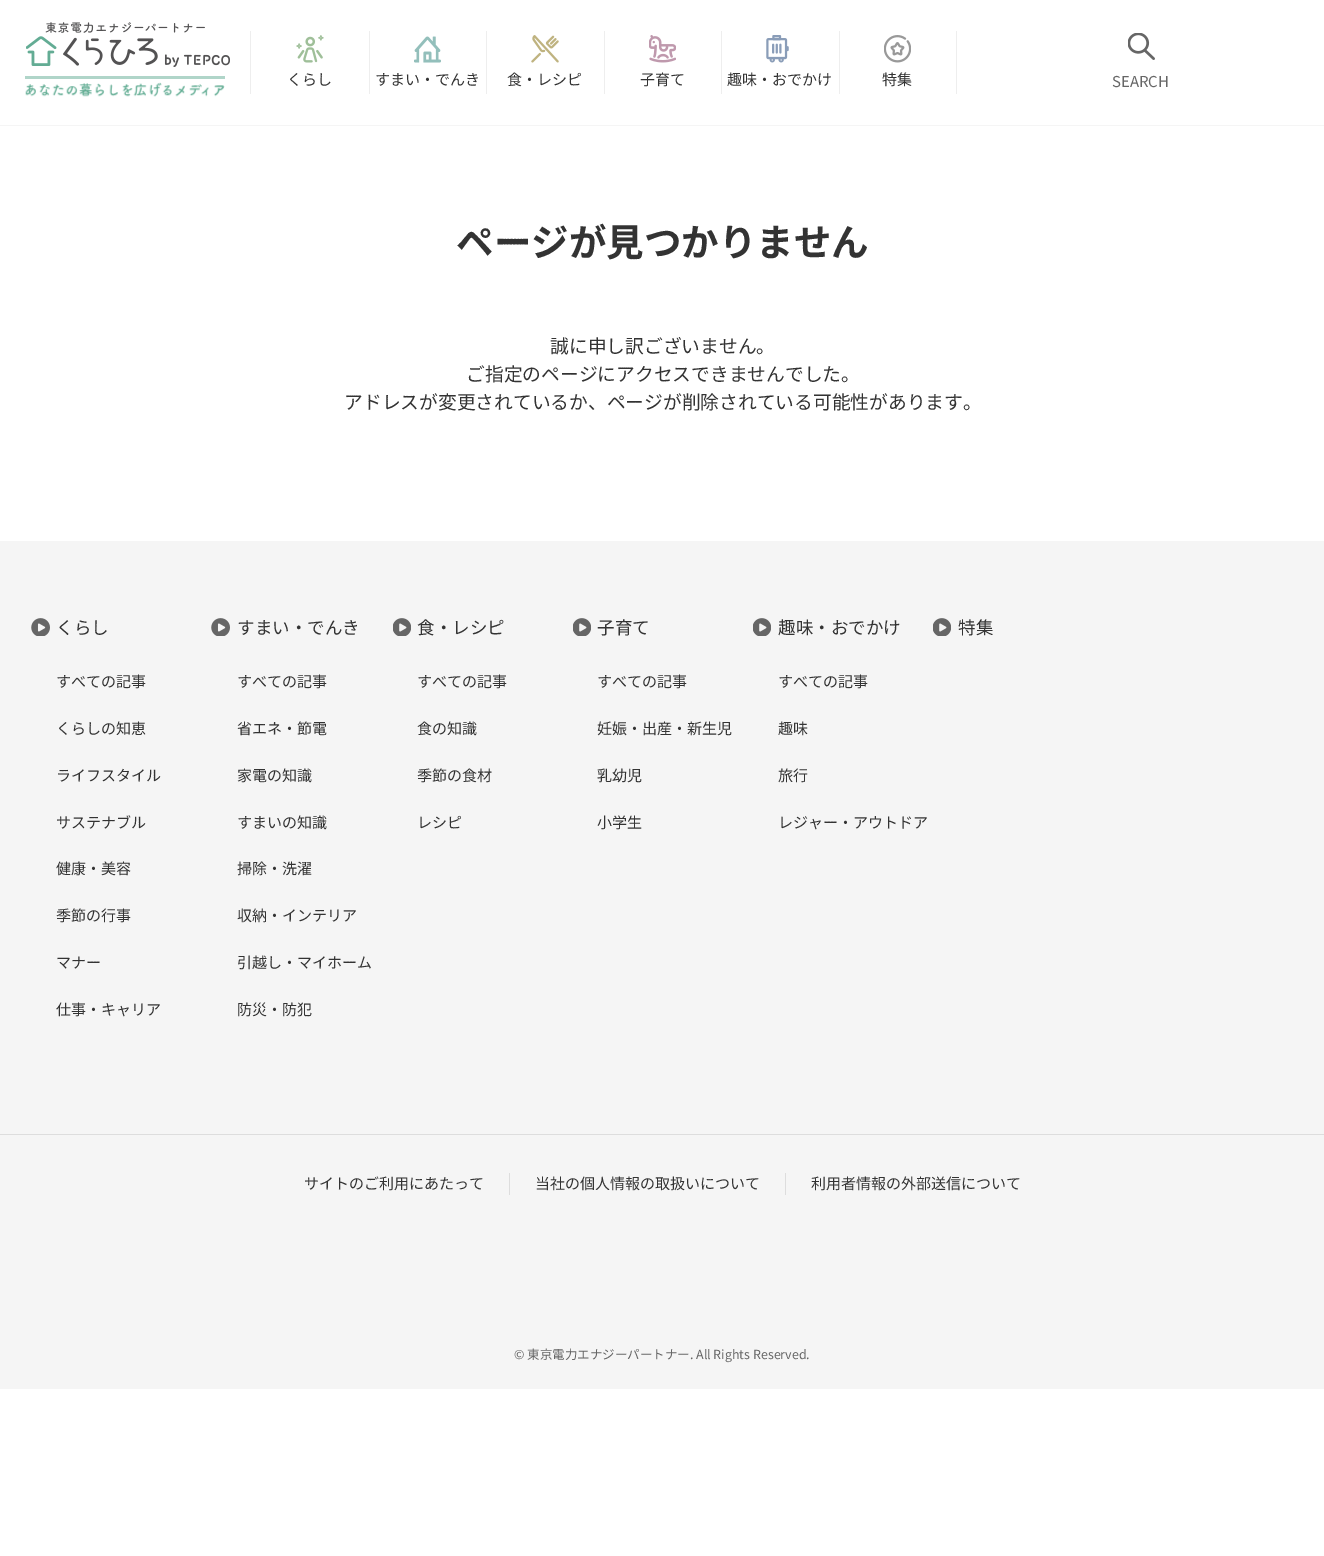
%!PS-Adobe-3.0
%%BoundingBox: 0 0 1324 1556
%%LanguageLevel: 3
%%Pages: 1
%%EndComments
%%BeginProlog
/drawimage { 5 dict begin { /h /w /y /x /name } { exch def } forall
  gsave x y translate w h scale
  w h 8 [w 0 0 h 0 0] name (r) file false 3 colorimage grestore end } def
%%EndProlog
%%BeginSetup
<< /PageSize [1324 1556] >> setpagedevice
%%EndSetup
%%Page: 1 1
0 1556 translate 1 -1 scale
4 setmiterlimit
1 setgray
0 0 1324 1556 rectfill
0.961 setgray
0 125 1324 1 rectfill
(images/1.raw) 45 22 160 11 drawimage
(images/2.raw) 26 36 204 31 drawimage
0.69 0.835 0.788 setrgbcolor
25 76 200 3 rectfill
(images/3.raw) 25 82 200 15 drawimage
0.933 setgray
250 31 1 63 rectfill
(images/4.raw) 296 35 28 28 drawimage
369 31 1 63 rectfill
(images/5.raw) 414 36 27 27 drawimage
486 31 1 63 rectfill
(images/6.raw) 531 35 28 28 drawimage
604 31 1 63 rectfill
(images/7.raw) 649 35 27 28 drawimage
721 31 1 63 rectfill
(images/8.raw) 766 35 23 28 drawimage
839 31 1 63 rectfill
(images/9.raw) 884 35 27 28 drawimage
956 31 1 63 rectfill
(images/10.raw) 1128 33 27 27 drawimage
0.961 setgray
0 541 1324 848 rectfill
0.867 setgray
0 1134 1324 1 rectfill
(images/11.raw) 31 618 19 18 drawimage
(images/11.raw) 211 618 19 18 drawimage
(images/12.raw) 393 618 18 18 drawimage
(images/12.raw) 573 618 18 18 drawimage
(images/12.raw) 753 618 18 18 drawimage
(images/12.raw) 933 618 18 18 drawimage
509 1173 1 22 rectfill
785 1173 1 22 rectfill
/NotoSansJP-Regular [15 0 0 -15 0 0] selectfont
0.2 setgray
287 85 moveto (くらし) show
375 85 moveto (すまい・でんき) show
507 85 moveto (食・レシピ) show
640 85 moveto (子育て) show
727 85 moveto (趣味・おでかけ) show
882 85 moveto (特集) show
0.4 setgray
1112 87 moveto (SEARCH) show
/NotoSansJP-Bold [37.5 0 0 -37.5 0 0] selectfont
0.2 setgray
456 256 moveto (ページが見つかりません) show
/NotoSansJP-Regular [18.75 0 0 -18.75 0 0] selectfont
550 353 moveto (誠に申し訳ございません。) show
466 381 moveto (ご指定のページにアクセスできませんでした。) show
344 409 moveto (アドレスが変更されているか、ページが削除されている可能性があります。) show
/NotoSansJP-Regular [17.5 0 0 -17.5 0 0] selectfont
56 634 moveto (くらし) show
/NotoSansJP-Regular [15 0 0 -15 0 0] selectfont
56 687 moveto (すべての記事) show
56 734 moveto (くらしの知恵) show
56 781 moveto (ライフスタイル) show
56 828 moveto (サステナブル) show
56 874 moveto (健康・美容) show
56 921 moveto (季節の行事) show
56 968 moveto (マナー) show
56 1015 moveto (仕事・キャリア) show
/NotoSansJP-Regular [17.5 0 0 -17.5 0 0] selectfont
237 634 moveto (すまい・でんき) show
/NotoSansJP-Regular [15 0 0 -15 0 0] selectfont
237 687 moveto (すべての記事) show
237 734 moveto (省エネ・節電) show
237 781 moveto (家電の知識) show
237 828 moveto (すまいの知識) show
237 874 moveto (掃除・洗濯) show
237 921 moveto (収納・インテリア) show
237 968 moveto (引越し・マイホーム) show
237 1015 moveto (防災・防犯) show
/NotoSansJP-Regular [17.5 0 0 -17.5 0 0] selectfont
417 634 moveto (食・レシピ) show
/NotoSansJP-Regular [15 0 0 -15 0 0] selectfont
417 687 moveto (すべての記事) show
417 734 moveto (食の知識) show
417 781 moveto (季節の食材) show
417 828 moveto (レシピ) show
/NotoSansJP-Regular [17.5 0 0 -17.5 0 0] selectfont
597 634 moveto (子育て) show
/NotoSansJP-Regular [15 0 0 -15 0 0] selectfont
597 687 moveto (すべての記事) show
597 734 moveto (妊娠・出産・新生児) show
597 781 moveto (乳幼児) show
597 828 moveto (小学生) show
/NotoSansJP-Regular [17.5 0 0 -17.5 0 0] selectfont
778 634 moveto (趣味・おでかけ) show
/NotoSansJP-Regular [15 0 0 -15 0 0] selectfont
778 687 moveto (すべての記事) show
778 734 moveto (趣味) show
778 781 moveto (旅行) show
778 828 moveto (レジャー・アウトドア) show
/NotoSansJP-Regular [17.5 0 0 -17.5 0 0] selectfont
958 634 moveto (特集) show
/NotoSansJP-Regular [15 0 0 -15 0 0] selectfont
304 1189 moveto (サイトのご利用にあたって) show
535 1189 moveto (当社の個人情報の取扱いについて) show
811 1189 moveto (利用者情報の外部送信について) show
/NotoSansJP-Regular [12.5 0 0 -12.5 0 0] selectfont
0.4 setgray
514 1359 moveto (© 東京電力エナジーパートナー. All Rights Reserved.) show
showpage
%%EOF
